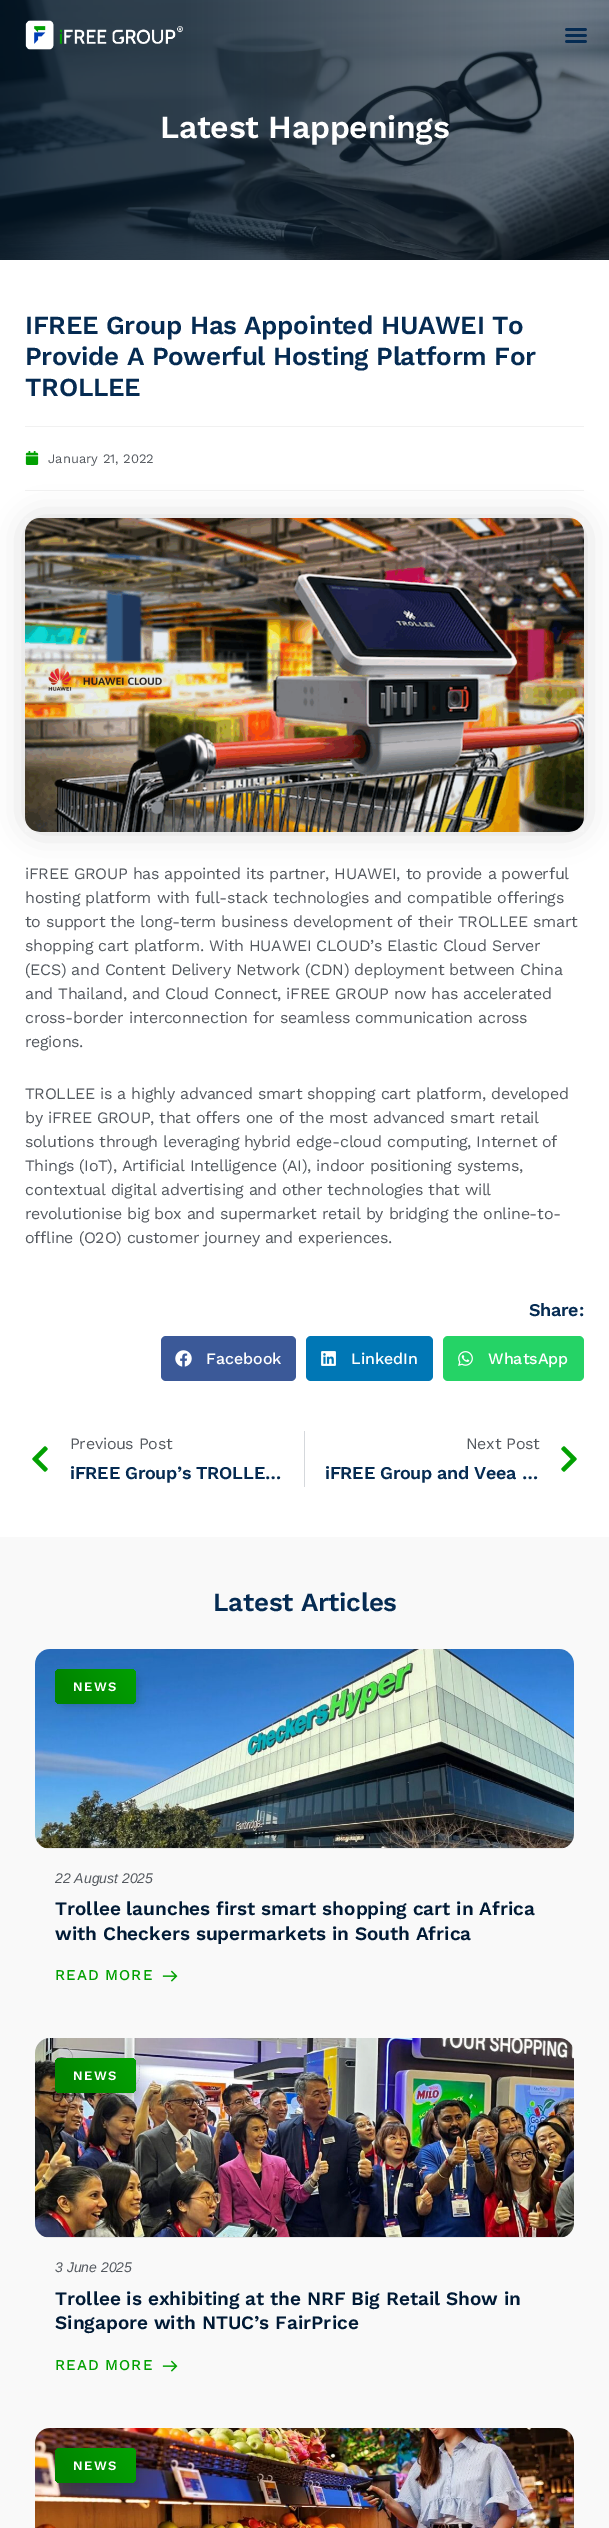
%!PS-Adobe-3.0
%%BoundingBox: 0 0 609 2528
%%LanguageLevel: 3
%%Pages: 1
%%EndComments
%%BeginProlog
/setalpha { dup .setfillconstantalpha .setstrokeconstantalpha } def
/rrect { 5 dict begin { /r /h /w /y /x } { exch def } forall
  x r add y moveto x w add y 2 copy h add r arct x w add y h add x 1 index r arct
  x y h add x y r arct x y 2 copy exch w add exch r arct closepath end } def
/softshadow { 12 dict begin { /a /b /q /h /w /y /x } { exch def } forall gsave /was 0 def
  9 -2 -9 { dup b mul 4 div /e exch def 1 sub .425 mul 2.718 exch exp 1 add a .99 .min exch div /now exch def
    1 1 now sub 1 was sub div sub setalpha /was now def
    w h .min e 2 mul add 0 gt { x e sub y e sub w e 2 mul add h e 2 mul add
      q e add b .6 mul add w h .min 2 div e add .min 0 .max rrect fill } if } for grestore end } def
/drawimage { 5 dict begin { /h /w /y /x /name } { exch def } forall
  gsave x y translate w h scale
  w h 8 [w 0 0 h 0 0] name (r) file false 3 colorimage grestore end } def
%%EndProlog
%%BeginSetup
<< /PageSize [609 2528] /PageUsesTransparency true >> setpagedevice
%%EndSetup
%%Page: 1 1
0 .pushpdf14devicefilter
0 2528 translate 1 -1 scale
4 setmiterlimit
1 setgray
0 0 609 2528 rectfill
(images/3.raw) 0 0 609 260 drawimage
(images/1.raw) 25 20 158 30 drawimage
(images/2.raw) 565 28 22 15 drawimage
0.945 setgray
25 426 559 1 rectfill
(images/4.raw) 25 451 14 14 drawimage
25 490 559 1 rectfill
0 setgray
25 518 559 314 15 15 0.15 softshadow
(images/5.raw) 25 518 559 314 drawimage
0.231 0.349 0.596 setrgbcolor
161 1336 135 45 5 rrect fill
(images/6.raw) 175 1350 17 17 drawimage
0 0.467 0.71 setrgbcolor
306 1336 127 45 5 rrect fill
(images/7.raw) 321 1351 15 15 drawimage
0.145 0.827 0.4 setrgbcolor
443 1336 141 45 5 rrect fill
(images/8.raw) 458 1351 15 15 drawimage
(images/9.raw) 32 1446 16 26 drawimage
0.835 0.847 0.863 setrgbcolor
304 1431 1 56 rectfill
(images/10.raw) 561 1446 16 26 drawimage
0.976 setgray
0 1537 609 991 rectfill
gsave
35 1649 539 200 rectclip
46 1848 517 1 rectclip
0 setgray
35 1648 539 200 0 15 0.15 softshadow
grestore
(images/11.raw) 35 1649 539 199 drawimage
0 setgray
63 1677 75 29 2 5 0.16 softshadow
gsave 55 1669 81 35 5 rrect clip newpath
<< /ShadingType 2 /ColorSpace /DeviceRGB /Coords [133 1664 58 1709] /Extend [true true] /Function << /FunctionType 3 /Domain [0 1] /Functions [<< /FunctionType 2 /Domain [0 1] /C0 [0.008 0.627 0.008] /C1 [0 0.522 0] /N 1 >> << /FunctionType 2 /Domain [0 1] /C0 [0 0.522 0] /C1 [0 0.522 0] /N 1 >>] /Bounds [0.82] /Encode [0 1 0 1] >> >> shfill grestore
(images/12.raw) 162 1970 16 12 drawimage
gsave
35 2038 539 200 rectclip
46 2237 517 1 rectclip
35 2037 539 200 0 15 0.15 softshadow
grestore
(images/13.raw) 35 2038 539 199 drawimage
63 2066 75 29 2 5 0.16 softshadow
gsave 55 2058 81 35 5 rrect clip newpath
<< /ShadingType 2 /ColorSpace /DeviceRGB /Coords [133 2053 58 2098] /Extend [true true] /Function << /FunctionType 3 /Domain [0 1] /Functions [<< /FunctionType 2 /Domain [0 1] /C0 [0.008 0.627 0.008] /C1 [0 0.522 0] /N 1 >> << /FunctionType 2 /Domain [0 1] /C0 [0 0.522 0] /C1 [0 0.522 0] /N 1 >>] /Bounds [0.82] /Encode [0 1 0 1] >> >> shfill grestore
(images/12.raw) 162 2360 16 12 drawimage
(images/14.raw) 35 2428 539 100 drawimage
63 2456 75 29 2 5 0.16 softshadow
gsave 55 2448 81 35 5 rrect clip newpath
<< /ShadingType 2 /ColorSpace /DeviceRGB /Coords [133 2443 58 2488] /Extend [true true] /Function << /FunctionType 3 /Domain [0 1] /Functions [<< /FunctionType 2 /Domain [0 1] /C0 [0.008 0.627 0.008] /C1 [0 0.522 0] /N 1 >> << /FunctionType 2 /Domain [0 1] /C0 [0 0.522 0] /C1 [0 0.522 0] /N 1 >>] /Bounds [0.82] /Encode [0 1 0 1] >> >> shfill grestore
/WorkSans-SemiBold [32 0 0 -32 0 0] selectfont
1 setgray
160 138 moveto -0.3 0 (Latest Happenings) ashow
/WorkSans-SemiBold [26 0 0 -26 0 0] selectfont
0.02 0.169 0.322 setrgbcolor
25 334 moveto -0.3 0 (IFREE Group Has Appointed HUAWEI To) ashow
25 365 moveto -0.3 0 (Provide A Powerful Hosting Platform For) ashow
25 396 moveto -0.3 0 (TROLLEE) ashow
/WorkSans-Regular [13 0 0 -13 0 0] selectfont
0.329 0.349 0.373 setrgbcolor
48 463 moveto (January 21, 2022) show
/WorkSans-Regular [16 0 0 -16 0 0] selectfont
25 879 moveto -0.3 0 (iFREE GROUP has appointed its partner, HUAWEI, to provide a powerful) ashow
25 903 moveto -0.3 0 (hosting platform with full-stack technologies and compatible offerings) ashow
25 927 moveto -0.3 0 (to support the long-term business development of their TROLLEE smart) ashow
25 951 moveto -0.3 0 (shopping cart platform. With HUAWEI CLOUD’s Elastic Cloud Server) ashow
25 975 moveto -0.3 0 (\(ECS\) and Content Delivery Network \(CDN\) deployment between China) ashow
25 999 moveto -0.3 0 (and Thailand, and Cloud Connect, iFREE GROUP now has accelerated) ashow
25 1023 moveto -0.3 0 (cross-border interconnection for seamless communication across) ashow
25 1047 moveto -0.3 0 (regions.) ashow
25 1099 moveto -0.3 0 (TROLLEE is a highly advanced smart shopping cart platform, developed) ashow
25 1123 moveto -0.3 0 (by iFREE GROUP, that offers one of the most advanced smart retail) ashow
25 1147 moveto -0.3 0 (solutions through leveraging hybrid edge-cloud computing, Internet of) ashow
25 1171 moveto -0.3 0 (Things \(IoT\), Artificial Intelligence \(AI\), indoor positioning systems,) ashow
25 1195 moveto -0.3 0 (contextual digital advertising and other technologies that will) ashow
25 1219 moveto -0.3 0 (revolutionise big box and supermarket retail by bridging the online-to-) ashow
25 1243 moveto -0.3 0 (offline \(O2O\) customer journey and experiences.) ashow
/WorkSans-SemiBold [18 0 0 -18 0 0] selectfont
0.02 0.169 0.322 setrgbcolor
529 1316 moveto -0.3 0 (Share:) ashow
/WorkSans-Medium [16 0 0 -16 0 0] selectfont
1 setgray
206 1364 moveto (Facebook) show
351 1364 moveto (LinkedIn) show
488 1364 moveto (WhatsApp) show
/WorkSans-Regular [16 0 0 -16 0 0] selectfont
0.329 0.349 0.373 setrgbcolor
70 1449 moveto -0.3 0 (Previous Post) ashow
/WorkSans-SemiBold [18 0 0 -18 0 0] selectfont
0.02 0.169 0.322 setrgbcolor
70 1479 moveto -0.3 0 (iFREE Group’s TROLLE…) ashow
/WorkSans-Regular [16 0 0 -16 0 0] selectfont
0.329 0.349 0.373 setrgbcolor
466 1449 moveto -0.3 0 (Next Post) ashow
/WorkSans-SemiBold [18 0 0 -18 0 0] selectfont
0.02 0.169 0.322 setrgbcolor
325 1479 moveto -0.3 0 (iFREE Group and Veea …) ashow
/WorkSans-SemiBold [26 0 0 -26 0 0] selectfont
213 1611 moveto -0.3 0 (Latest Articles) ashow
/WorkSans-SemiBold [13 0 0 -13 0 0] selectfont
1 setgray
73 1691 moveto 1.5 0 (NEWS) ashow
/LiberationSans-Italic [14 0 0 -14 0 0] selectfont
0.329 0.349 0.373 setrgbcolor
55 1883 moveto (22 August 2025) show
/WorkSans-SemiBold [19 0 0 -19 0 0] selectfont
0 0.102 0.208 setrgbcolor
55 1915 moveto (Trollee launches first smart shopping cart in Africa) show
55 1940 moveto (with Checkers supermarkets in South Africa) show
/WorkSans-Medium [15 0 0 -15 0 0] selectfont
0.008 0.627 0.008 setrgbcolor
55 1980 moveto 1 0 (READ MORE) ashow
/WorkSans-SemiBold [13 0 0 -13 0 0] selectfont
1 setgray
73 2080 moveto 1.5 0 (NEWS) ashow
/LiberationSans-Italic [14 0 0 -14 0 0] selectfont
0.329 0.349 0.373 setrgbcolor
55 2272 moveto (3 June 2025) show
/WorkSans-SemiBold [19 0 0 -19 0 0] selectfont
0 0.102 0.208 setrgbcolor
55 2305 moveto (Trollee is exhibiting at the NRF Big Retail Show in) show
55 2329 moveto (Singapore with NTUC’s FairPrice) show
/WorkSans-Medium [15 0 0 -15 0 0] selectfont
0.008 0.627 0.008 setrgbcolor
55 2370 moveto 1 0 (READ MORE) ashow
/WorkSans-SemiBold [13 0 0 -13 0 0] selectfont
1 setgray
73 2470 moveto 1.5 0 (NEWS) ashow
.poppdf14devicefilter showpage
%%EOF
